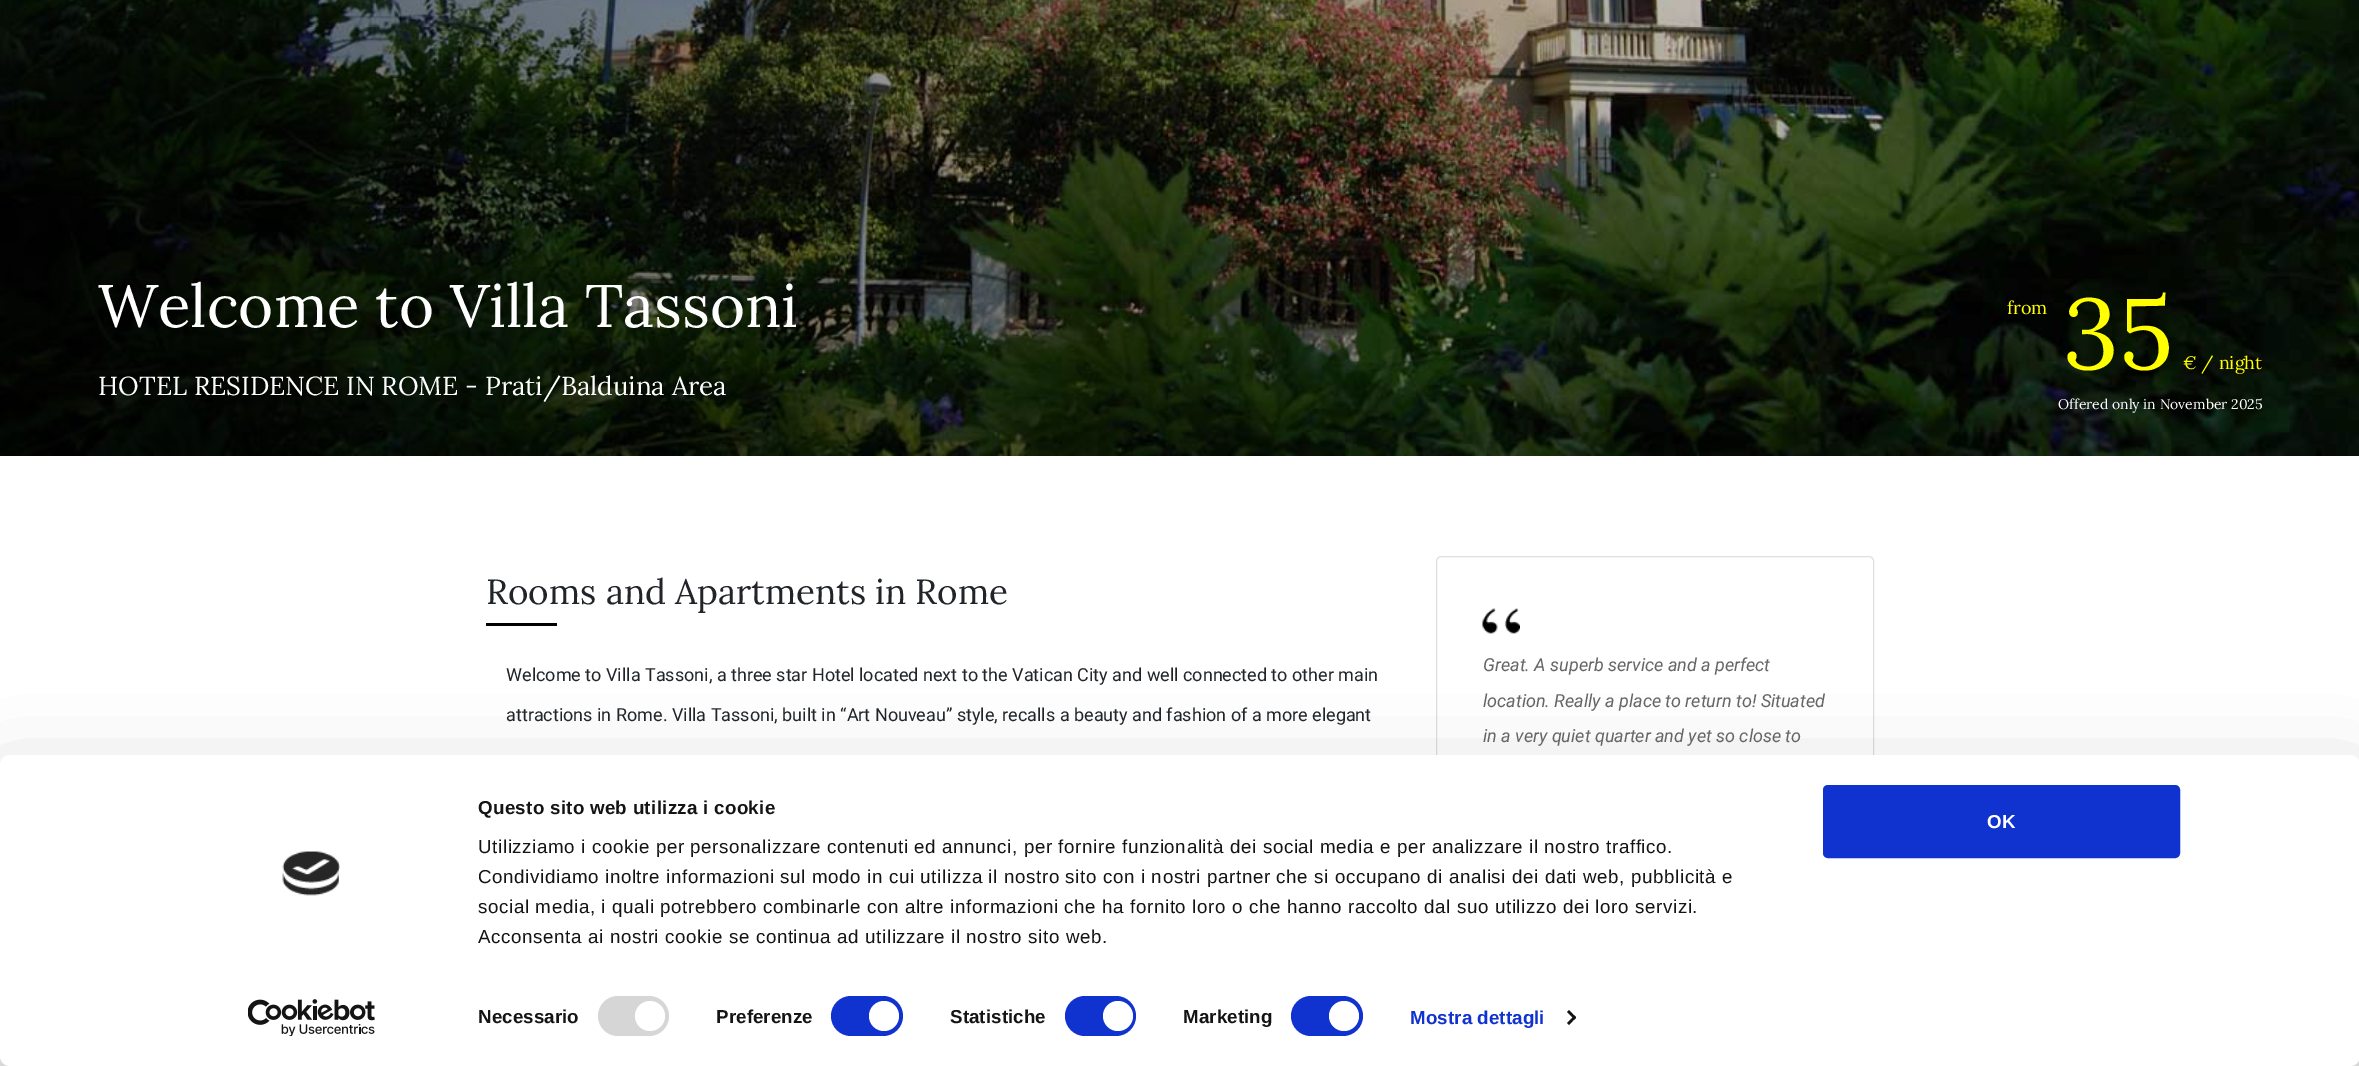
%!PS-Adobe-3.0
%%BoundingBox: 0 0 2359 1066
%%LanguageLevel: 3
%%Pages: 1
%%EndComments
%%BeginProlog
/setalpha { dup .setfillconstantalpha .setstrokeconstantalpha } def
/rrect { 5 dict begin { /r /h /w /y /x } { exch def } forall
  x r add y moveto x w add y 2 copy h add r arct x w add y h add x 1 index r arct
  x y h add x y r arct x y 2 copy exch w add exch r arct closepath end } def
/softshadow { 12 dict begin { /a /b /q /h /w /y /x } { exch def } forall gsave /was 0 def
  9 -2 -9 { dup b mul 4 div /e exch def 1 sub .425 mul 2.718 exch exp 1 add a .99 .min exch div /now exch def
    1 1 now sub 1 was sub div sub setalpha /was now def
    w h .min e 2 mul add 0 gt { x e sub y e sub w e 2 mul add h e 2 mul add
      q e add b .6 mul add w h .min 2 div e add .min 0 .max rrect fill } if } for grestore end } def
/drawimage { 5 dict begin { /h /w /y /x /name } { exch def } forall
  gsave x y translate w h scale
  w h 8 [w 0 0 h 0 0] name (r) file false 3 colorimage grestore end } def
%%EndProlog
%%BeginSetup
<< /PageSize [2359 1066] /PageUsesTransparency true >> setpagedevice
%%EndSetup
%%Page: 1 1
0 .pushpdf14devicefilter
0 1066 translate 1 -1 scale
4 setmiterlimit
1 setgray
0 0 2359 1066 rectfill
(images/1.raw) 0 0 2359 456 drawimage
0 setgray
486 623 71 3 rectfill
0.875 setgray
1436.5 556.5 437 397 4.5 rrect stroke
(images/2.raw) 1482 608 38 26 drawimage
0 setgray
0 793 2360 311 10 44 0.3 softshadow
1 setgray
0 755 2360 311 10 rrect fill
0.839 setgray
598 996 71 40 20 rrect fill
1 setgray
newpath 650 1016 15 0 360 arc closepath fill
0.063 0.196 0.812 setrgbcolor
831 996 72 40 20 rrect fill
1 setgray
newpath 884 1016 15 0 360 arc closepath fill
0.063 0.196 0.812 setrgbcolor
1065 996 71 40 20 rrect fill
1 setgray
newpath 1118 1016 15 0 360 arc closepath fill
0.063 0.196 0.812 setrgbcolor
1291 996 72 40 20 rrect fill
1 setgray
newpath 1344 1016 15 0 360 arc closepath fill
0.078 setgray
newpath 1569 1010 moveto 1576 1017.5 lineto 1574.5 1019.5 lineto 1567 1012 lineto closepath fill
newpath 1574.5 1015.5 moveto 1576 1017.5 lineto 1569 1025 lineto 1567 1023 lineto closepath fill
0.063 0.196 0.812 setrgbcolor
1824.5 786.5 354 70 3.5 rrect gsave fill grestore
3 setlinewidth
stroke
(images/3.raw) 282 851 58 45 drawimage
(images/4.raw) 248 999 127 37 drawimage
/Lora-Regular [60 0 0 -60 0 0] selectfont
1 setgray
98 327 moveto (Welcome to Villa Tassoni) show
/Lora-Regular [26 0 0 -26 0 0] selectfont
98 395 moveto (HOTEL RESIDENCE IN ROME - Prati/Balduina Area) show
/Lora-Regular [18 0 0 -18 0 0] selectfont
1 1 0 setrgbcolor
2007 314 moveto (from) show
/Lora-Regular [100 0 0 -100 0 0] selectfont
2063 369 moveto (35) show
/Lora-Regular [18 0 0 -18 0 0] selectfont
2183 369 moveto (€ / night) show
/Lora-Regular [14 0 0 -14 0 0] selectfont
1 setgray
2058 409 moveto (Offered only in November 2025) show
/Lora-Regular [35 0 0 -35 0 0] selectfont
0.129 0.145 0.161 setrgbcolor
486 604 moveto (Rooms and Apartments in Rome) show
/Roboto-Regular [18 0 0 -18 0 0] selectfont
506 681 moveto (Welcome to Villa Tassoni, a three star Hotel located next to the Vatican City and well connected to other main) show
506 721 moveto (attractions in Rome. Villa Tassoni, built in “Art Nouveau” style, recalls a beauty and fashion of a more elegant) show
/Roboto-Italic [18 0 0 -18 0 0] selectfont
0.4 setgray
1483 671 moveto (Great. A superb service and a perfect) show
1483 707 moveto (location. Really a place to return to! Situated) show
1483 742 moveto (in a very quiet quarter and yet so close to) show
/LiberationSans-Bold [18.75 0 0 -18.75 0 0] selectfont
0.078 setgray
478 814 moveto 0.3 0 (Questo sito web utilizza i cookie) ashow
/LiberationSans-Regular [18.75 0 0 -18.75 0 0] selectfont
478 853 moveto 0.62 0 (Utilizziamo i cookie per personalizzare contenuti ed annunci, per fornire funzionalità dei social media e per analizzare il nostro traffico.) ashow
478 883 moveto 0.62 0 (Condividiamo inoltre informazioni sul modo in cui utilizza il nostro sito con i nostri partner che si occupano di analisi dei dati web, pubblicità e) ashow
478 913 moveto 0.62 0 (social media, i quali potrebbero combinarle con altre informazioni che ha fornito loro o che hanno raccolto dal suo utilizzo dei loro servizi.) ashow
478 943 moveto 0.62 0 (Acconsenta ai nostri cookie se continua ad utilizzare il nostro sito web.) ashow
/LiberationSans-Bold [18.75 0 0 -18.75 0 0] selectfont
478 1023 moveto 0.1 0 (Necessario) ashow
716 1023 moveto 0.1 0 (Preferenze) ashow
950 1023 moveto 0.1 0 (Statistiche) ashow
1183 1023 moveto 0.1 0 (Marketing) ashow
0.063 0.196 0.812 setrgbcolor
1410 1024 moveto 0.1 0 (Mostra dettagli) ashow
1 setgray
1987 828 moveto (OK) show
.poppdf14devicefilter showpage
%%EOF
